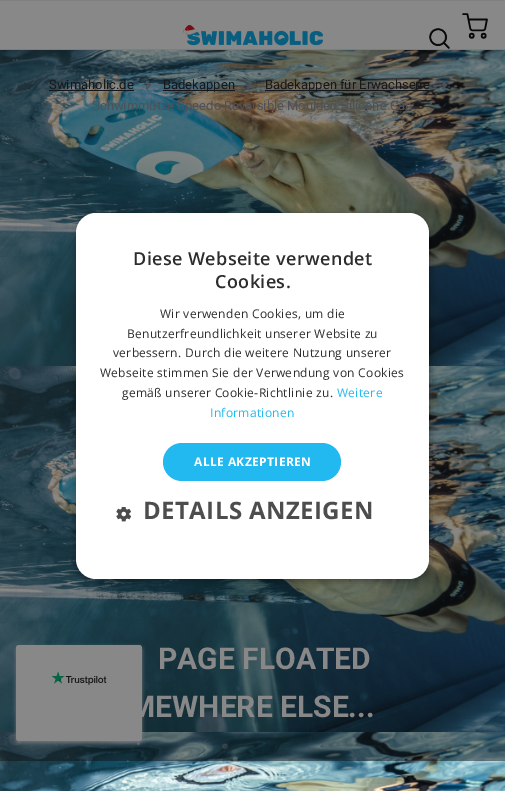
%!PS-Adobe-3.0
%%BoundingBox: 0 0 505 791
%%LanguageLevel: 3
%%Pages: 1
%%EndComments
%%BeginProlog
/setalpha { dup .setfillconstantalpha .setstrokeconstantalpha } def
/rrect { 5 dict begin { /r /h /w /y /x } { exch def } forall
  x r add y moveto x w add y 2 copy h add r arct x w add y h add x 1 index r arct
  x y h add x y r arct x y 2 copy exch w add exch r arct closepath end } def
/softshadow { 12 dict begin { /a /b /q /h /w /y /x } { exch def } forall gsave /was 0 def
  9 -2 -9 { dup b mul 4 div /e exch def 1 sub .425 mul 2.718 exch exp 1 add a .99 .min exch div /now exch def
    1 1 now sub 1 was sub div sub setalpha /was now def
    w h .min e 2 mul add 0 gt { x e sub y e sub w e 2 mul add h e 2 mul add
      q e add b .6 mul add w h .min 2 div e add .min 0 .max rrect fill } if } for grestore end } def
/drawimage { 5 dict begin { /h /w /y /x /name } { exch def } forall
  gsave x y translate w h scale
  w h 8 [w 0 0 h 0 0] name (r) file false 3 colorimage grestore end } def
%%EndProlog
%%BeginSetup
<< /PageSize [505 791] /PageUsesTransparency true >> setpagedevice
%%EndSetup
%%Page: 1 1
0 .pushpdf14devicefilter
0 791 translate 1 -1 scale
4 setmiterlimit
1 setgray
0 0 505 791 rectfill
(images/1.raw) 0 50 505 741 drawimage
0.533 setgray
0 1 505 48 rectfill
0.506 0.502 0.502 setrgbcolor
0 0 505 1 rectfill
0.486 0.49 0.498 setrgbcolor
0 49 505 1 rectfill
(images/2.raw) 183 25 140 21 drawimage
(images/3.raw) 429 28 21 21 drawimage
(images/4.raw) 429 28 21 21 drawimage
(images/5.raw) 462 13 26 26 drawimage
0.09 0.094 0.106 setrgbcolor
49 90 85 1 rectfill
(images/6.raw) 145 80 7 10 drawimage
163 90 72 1 rectfill
(images/7.raw) 246 80 7 10 drawimage
265 90 164 1 rectfill
(images/8.raw) 441 80 7 10 drawimage
0 setgray
77 215 353 366 20 4 0.35 softshadow
1 setgray
76 213 353 366 20 rrect fill
0.133 0.722 0.941 setrgbcolor
163 443 178 38 19 rrect fill
(images/9.raw) 116 507 15 15 drawimage
0.467 0.467 0.486 setrgbcolor
16 647 126 96 3 2 1 softshadow
0.533 setgray
16 645 126 96 3 rrect fill
(images/10.raw) 51 671 56 14 drawimage
/Roboto-Regular [13 0 0 -13 0 0] selectfont
0.09 0.094 0.106 setrgbcolor
49 89 moveto (Swimaholic.de) show
163 89 moveto (Badekappen) show
265 89 moveto (Badekappen für Erwachsene) show
0.302 0.318 0.353 setrgbcolor
92 110 moveto (Schwimmütze Speedo Reversible Moulded Silicone Cap) show
/OpenSans-SemiBold [18 0 0 -18 0 0] selectfont
0.176 setgray
133 265 moveto 0.4 0 (Diese Webseite verwendet) ashow
215 288 moveto 0.4 0 (Cookies.) ashow
/OpenSans-Regular [12 0 0 -12 0 0] selectfont
160 318 moveto 0.3 0 (Wir verwenden Cookies, um die) ashow
127 338 moveto 0.3 0 (Benutzerfreundlichkeit unserer Website zu) ashow
113 357 moveto 0.3 0 (verbessern. Durch die weitere Nutzung unserer) ashow
100 377 moveto 0.3 0 (Webseite stimmen Sie der Verwendung von Cookies) ashow
122 397 moveto 0.3 0 (gemäß unserer Cookie-Richtlinie zu.) ashow
0.133 0.722 0.941 setrgbcolor
337 397 moveto 0.3 0 (Weitere) ashow
210 417 moveto 0.3 0 (Informationen) ashow
/OpenSans-Bold [12 0 0 -12 0 0] selectfont
1 setgray
194 466 moveto 0.4 0 (ALLE AKZEPTIEREN) ashow
/OpenSans-Bold [24 0 0 -24 0 0] selectfont
0.302 setgray
143 519 moveto 0.4 0 (DETAILS ANZEIGEN) ashow
/Roboto-Bold [30 0 0 -30 0 0] selectfont
0.533 setgray
158 669 moveto (PAGE FLOATED) show
129 717 moveto (MEWHERE ELSE...) show
.poppdf14devicefilter showpage
%%EOF
